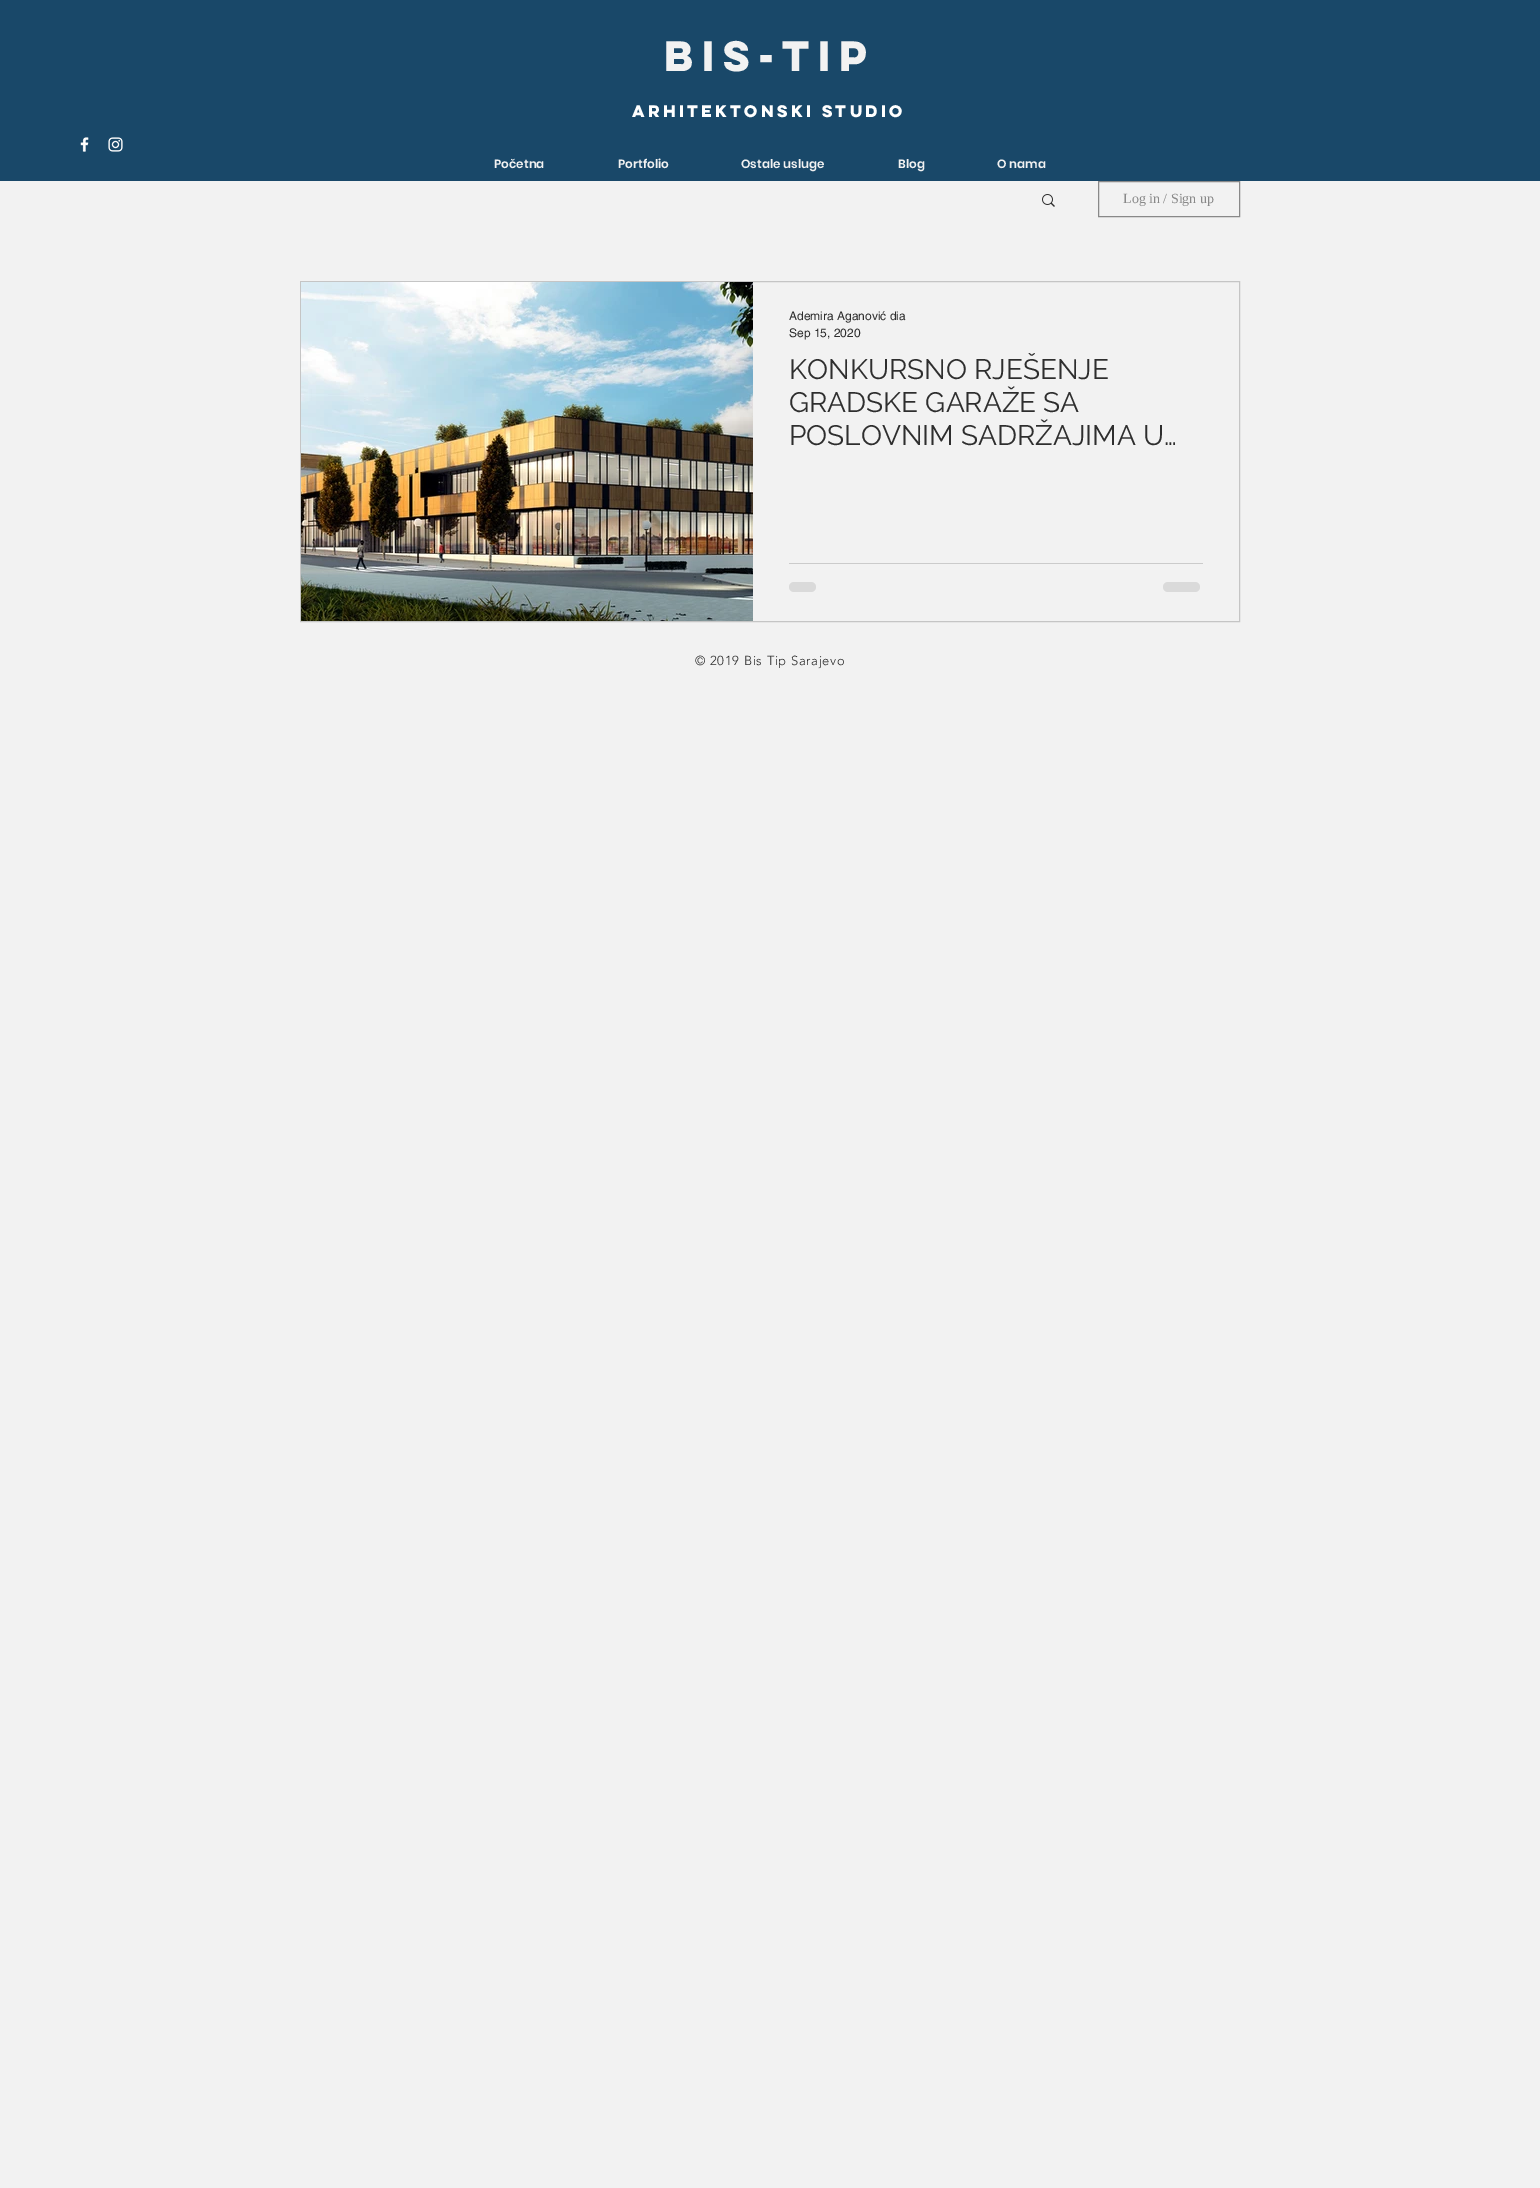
%!PS-Adobe-3.0
%%BoundingBox: 0 0 1540 2188
%%LanguageLevel: 3
%%Pages: 1
%%EndComments
%%BeginProlog
/rrect { 5 dict begin { /r /h /w /y /x } { exch def } forall
  x r add y moveto x w add y 2 copy h add r arct x w add y h add x 1 index r arct
  x y h add x y r arct x y 2 copy exch w add exch r arct closepath end } def
/drawimage { 5 dict begin { /h /w /y /x /name } { exch def } forall
  gsave x y translate w h scale
  w h 8 [w 0 0 h 0 0] name (r) file false 3 colorimage grestore end } def
%%EndProlog
%%BeginSetup
<< /PageSize [1540 2188] >> setpagedevice
%%EndSetup
%%Page: 1 1
0 2188 translate 1 -1 scale
4 setmiterlimit
0.949 setgray
0 0 1540 2188 rectfill
0.098 0.282 0.412 setrgbcolor
0 0 1540 181 rectfill
(images/1.raw) 80 137 9 15 drawimage
(images/2.raw) 108 137 15 15 drawimage
(images/3.raw) 1042 194 13 13 drawimage
0.537 setgray
1098.5 181.5 141 35 rectstroke
0.773 setgray
300.5 281.5 939 340 rectstroke
(images/4.raw) 301 282 452 339 drawimage
0.796 setgray
789 563 414 1 rectfill
0.855 setgray
789 582 27 10 5 rrect fill
1163 582 37 10 5 rrect fill
/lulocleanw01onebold-Bold [38 0 0 -38 0 0] selectfont
0.949 setgray
664 71 moveto (bIS-TIP) show
/lulocleanw01onebold-Bold [15 0 0 -15 0 0] selectfont
1 setgray
632 117 moveto (Arhitektonski studio) show
/Poppins-SemiBold [12 0 0 -12 0 0] selectfont
0.949 setgray
494 168 moveto (Početna) show
618 168 moveto (Portfolio) show
741 168 moveto (Ostale usluge) show
898 168 moveto (Blog) show
997 168 moveto (O nama) show
/LiberationSerif-Regular [14 0 0 -14 0 0] selectfont
0.537 setgray
1123 203 moveto (Log in / Sign up) show
/helvetica-Regular [12 0 0 -12 0 0] selectfont
0.18 setgray
789 320 moveto (Ademira Aganović dia) show
789 337 moveto (Sep 15, 2020) show
/Raleway-Regular [28 0 0 -28 0 0] selectfont
789 379 moveto (KONKURSNO RJEŠENJE) show
789 412 moveto (GRADSKE GARAŽE SA) show
789 445 moveto (POSLOVNIM SADRŽAJIMA U…) show
/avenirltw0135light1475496-Light [13 0 0 -13 0 0] selectfont
695 665 moveto 0.65 0 (© 2019 Bis Tip Sarajevo) ashow
showpage
%%EOF
